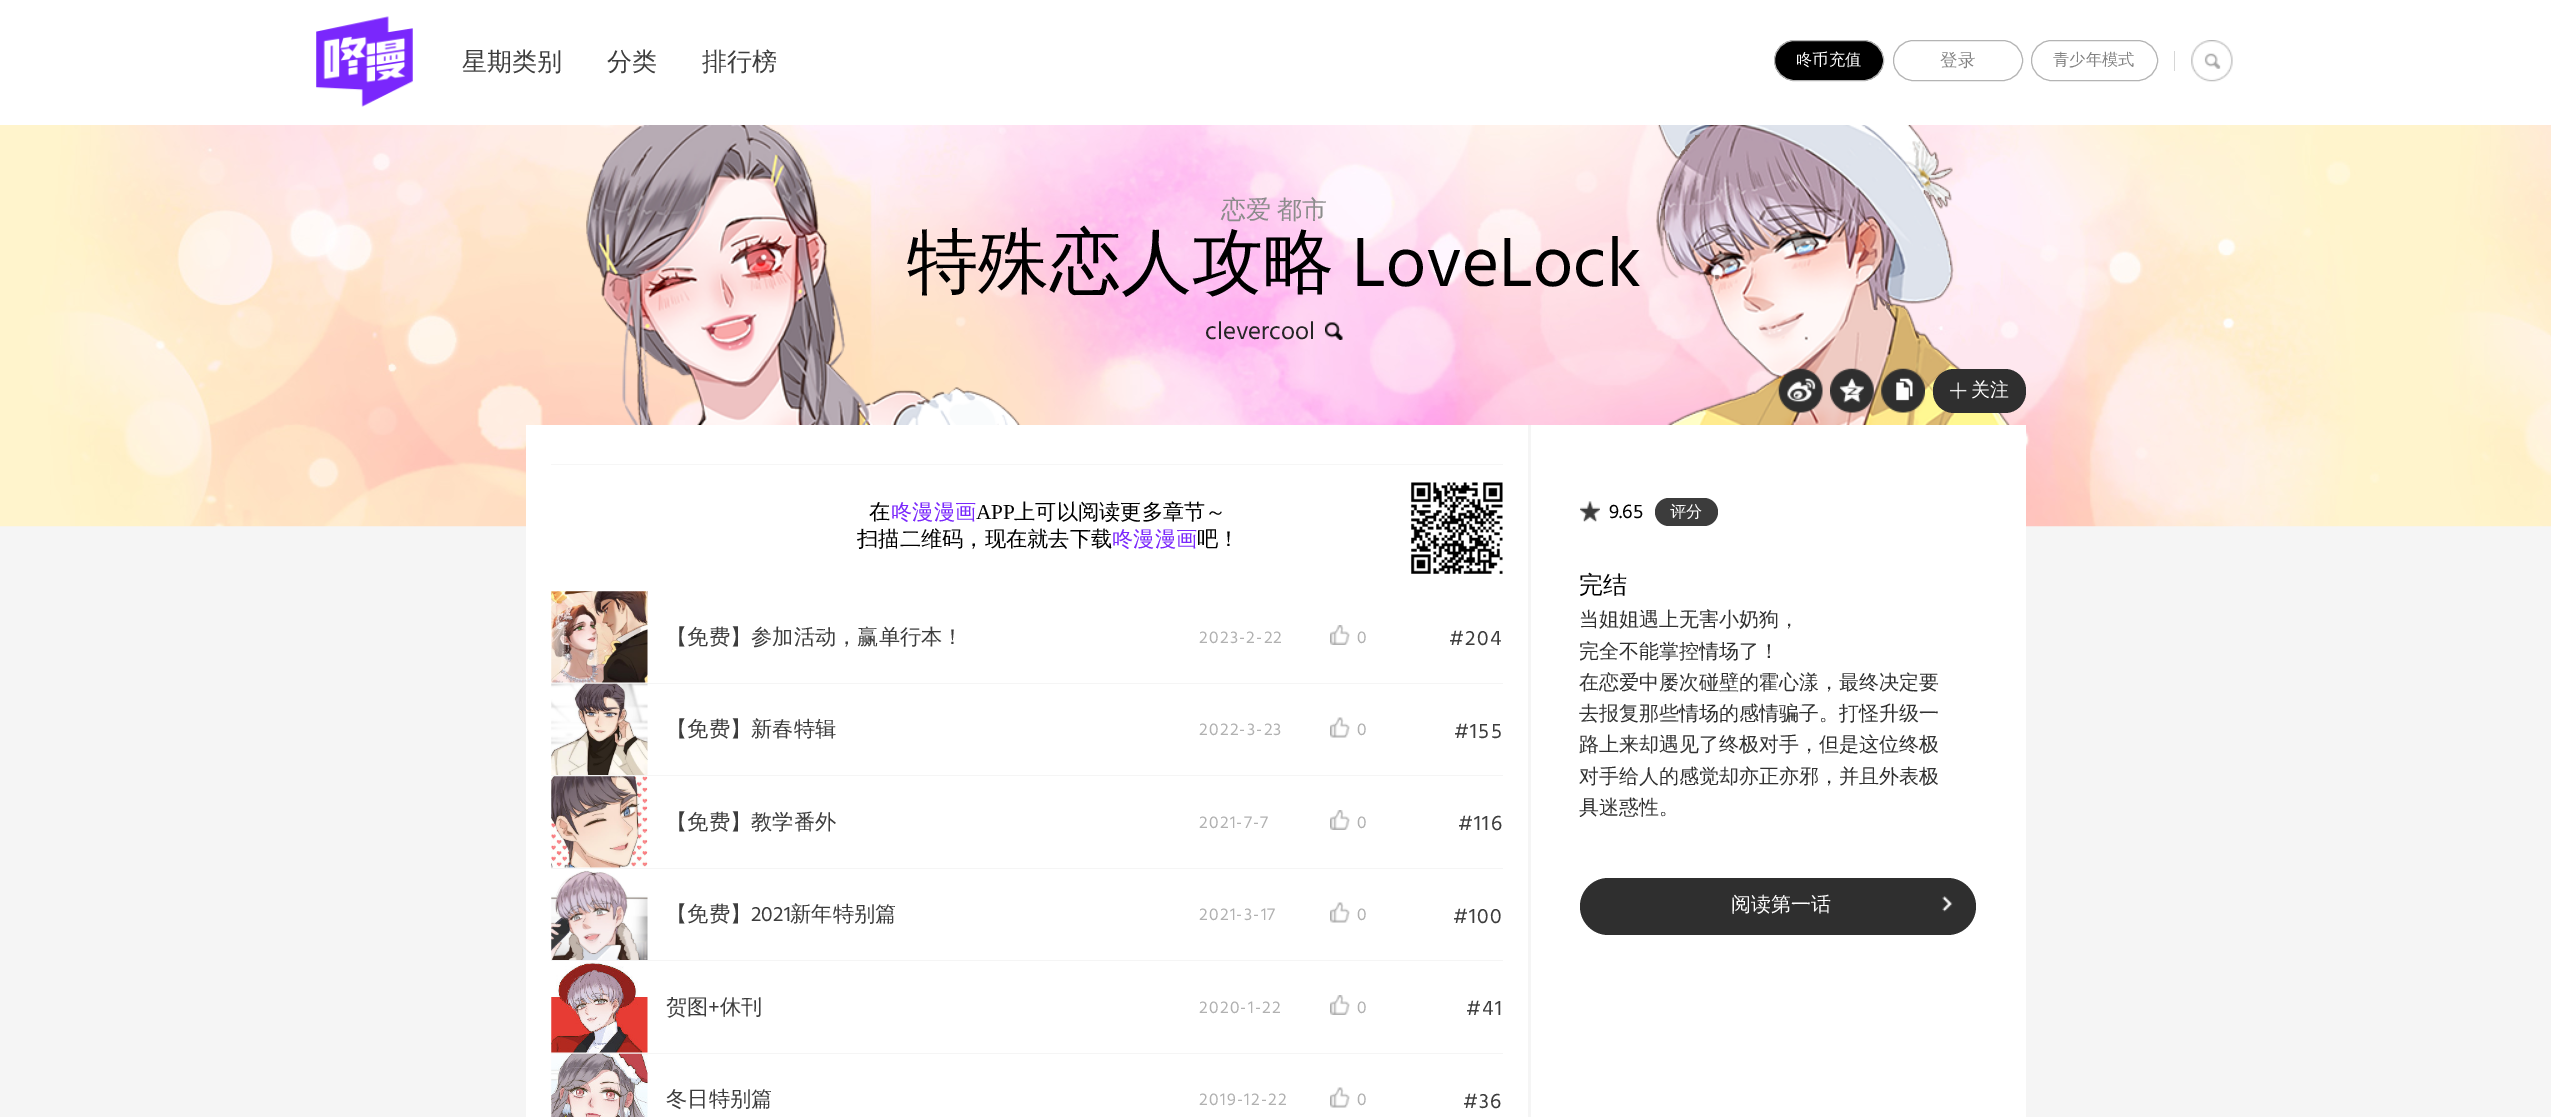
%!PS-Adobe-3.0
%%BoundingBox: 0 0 2551 1117
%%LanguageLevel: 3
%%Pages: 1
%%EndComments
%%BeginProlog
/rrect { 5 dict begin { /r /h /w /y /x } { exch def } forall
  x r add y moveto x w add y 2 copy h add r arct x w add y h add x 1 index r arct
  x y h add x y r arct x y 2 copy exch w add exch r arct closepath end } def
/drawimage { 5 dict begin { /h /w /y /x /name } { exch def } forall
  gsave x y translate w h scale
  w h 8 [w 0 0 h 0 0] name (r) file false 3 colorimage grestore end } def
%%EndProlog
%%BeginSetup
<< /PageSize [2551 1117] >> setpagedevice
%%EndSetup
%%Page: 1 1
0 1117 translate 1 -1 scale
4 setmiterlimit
0.961 setgray
0 0 2551 1117 rectfill
1 setgray
0 0 2551 125 rectfill
(images/1.raw) 316 16 97 91 drawimage
0 setgray
1774.5 40.5 109 40 20 rrect gsave fill grestore
0.706 setgray
stroke
1893.5 40.5 129 40 20 rrect stroke
2031.5 40.5 126 40 20 rrect stroke
0.839 setgray
2174 51 1 20 rectfill
(images/2.raw) 2191 40 42 42 drawimage
(images/3.raw) 0 125 2551 402 drawimage
(images/4.raw) 586 125 1424 300 drawimage
(images/5.raw) 1325 322 18 18 drawimage
(images/6.raw) 1778 368 45 45 drawimage
(images/7.raw) 1830 368 44 45 drawimage
(images/8.raw) 1881 368 44 45 drawimage
0.184 setgray
1933 369 93 44 21 rrect fill
(images/9.raw) 1950 382 17 17 drawimage
1 setgray
526 425 1500 692 rectfill
0.961 setgray
1528 425 3 692 rectfill
0.965 setgray
551 464 952 1 rectfill
(images/10.raw) 1411 482 92 92 drawimage
0.961 setgray
551 683 952 1 rectfill
(images/11.raw) 551 591 97 92 drawimage
(images/12.raw) 1330 625 20 20 drawimage
551 775 952 1 rectfill
(images/13.raw) 551 683 97 92 drawimage
(images/14.raw) 1330 717 20 21 drawimage
551 868 952 1 rectfill
(images/15.raw) 551 776 97 92 drawimage
(images/12.raw) 1330 810 20 20 drawimage
551 960 952 1 rectfill
(images/16.raw) 551 870 97 90 drawimage
(images/14.raw) 1330 902 20 21 drawimage
551 1053 952 1 rectfill
(images/17.raw) 551 961 97 92 drawimage
(images/12.raw) 1330 995 20 20 drawimage
(images/18.raw) 551 1053 97 64 drawimage
(images/14.raw) 1330 1087 20 21 drawimage
(images/19.raw) 1580 501 20 21 drawimage
0.235 setgray
1655 498 63 28 14 rrect fill
0.184 setgray
1580 878 396 57 28.5 rrect fill
(images/20.raw) 1942 896 11 16 drawimage
/WenQuanYiZenHei-Medium [25 0 0 -25 0 0] selectfont
0.239 setgray
462 70 moveto (星期类别) show
607 70 moveto (分类) show
702 70 moveto (排行榜) show
/WenQuanYiZenHei-Medium [16.25 0 0 -16.25 0 0] selectfont
1 setgray
1796 65 moveto (咚币充值) show
/WenQuanYiZenHei-Medium [17.5 0 0 -17.5 0 0] selectfont
0.514 setgray
1940 66 moveto (登录) show
/WenQuanYiZenHei-Medium [16.25 0 0 -16.25 0 0] selectfont
2053 65 moveto (青少年模式) show
/WenQuanYiZenHei-Medium [25 0 0 -25 0 0] selectfont
0.549 setgray
1221 218 moveto -1 0 32 (恋爱 都市) widthshow
/WenQuanYiZenHei-Medium [71.25 0 0 -71.25 0 0] selectfont
0 setgray
907 286 moveto (特殊恋人攻略) show
/Hind-Regular [71.25 0 0 -71.25 0 0] selectfont
1352 286 moveto (LoveLock) show
/Hind-Regular [25 0 0 -25 0 0] selectfont
0.145 setgray
1205 339 moveto (clevercool) show
/WenQuanYiZenHei-Medium [19 0 0 -19 0 0] selectfont
1 setgray
1971 396 moveto (关注) show
/WenQuanYiZenHei-Medium [21.25 0 0 -21.25 0 0] selectfont
0 setgray
869 519 moveto (在) show
0.478 0.153 0.988 setrgbcolor
891 519 moveto (咚漫漫画) show
/LiberationSerif-Regular [21.25 0 0 -21.25 0 0] selectfont
0 setgray
976 519 moveto (APP) show
/WenQuanYiZenHei-Medium [21.25 0 0 -21.25 0 0] selectfont
1014 519 moveto (上可以阅读更多章节～) show
857 546 moveto (扫描二维码，现在就去下载) show
0.478 0.153 0.988 setrgbcolor
1112 546 moveto (咚漫漫画) show
0 setgray
1197 546 moveto (吧！) show
0.239 setgray
666 644 moveto (【免费】参加活动，赢单行本！) show
/Hind-Regular [17.5 0 0 -17.5 0 0] selectfont
0.694 setgray
1199 643 moveto 1.25 0 (2023-2-22) ashow
1357 643 moveto 1.25 0 (0) ashow
/Hind-Regular [21.25 0 0 -21.25 0 0] selectfont
0.239 setgray
1449 645 moveto 1.25 0 (#204) ashow
/WenQuanYiZenHei-Medium [21.25 0 0 -21.25 0 0] selectfont
666 736 moveto (【免费】新春特辑) show
/Hind-Regular [17.5 0 0 -17.5 0 0] selectfont
0.694 setgray
1199 735 moveto 1.25 0 (2022-3-23) ashow
1357 735 moveto 1.25 0 (0) ashow
/Hind-Regular [21.25 0 0 -21.25 0 0] selectfont
0.239 setgray
1454 738 moveto 1.25 0 (#155) ashow
/WenQuanYiZenHei-Medium [21.25 0 0 -21.25 0 0] selectfont
666 829 moveto (【免费】教学番外) show
/Hind-Regular [17.5 0 0 -17.5 0 0] selectfont
0.694 setgray
1199 828 moveto 1.25 0 (2021-7-7) ashow
1357 828 moveto 1.25 0 (0) ashow
/Hind-Regular [21.25 0 0 -21.25 0 0] selectfont
0.239 setgray
1458 830 moveto 1.25 0 (#116) ashow
/WenQuanYiZenHei-Medium [21.25 0 0 -21.25 0 0] selectfont
666 921 moveto (【免费】) show
/Hind-Regular [21.25 0 0 -21.25 0 0] selectfont
751 921 moveto (2021) show
/WenQuanYiZenHei-Medium [21.25 0 0 -21.25 0 0] selectfont
790 921 moveto (新年特别篇) show
/Hind-Regular [17.5 0 0 -17.5 0 0] selectfont
0.694 setgray
1199 920 moveto 1.25 0 (2021-3-17) ashow
1357 920 moveto 1.25 0 (0) ashow
/Hind-Regular [21.25 0 0 -21.25 0 0] selectfont
0.239 setgray
1453 923 moveto 1.25 0 (#100) ashow
/WenQuanYiZenHei-Medium [21.25 0 0 -21.25 0 0] selectfont
666 1014 moveto (贺图) show
/Hind-Regular [21.25 0 0 -21.25 0 0] selectfont
708 1014 moveto (+) show
/WenQuanYiZenHei-Medium [21.25 0 0 -21.25 0 0] selectfont
720 1014 moveto (休刊) show
/Hind-Regular [17.5 0 0 -17.5 0 0] selectfont
0.694 setgray
1199 1013 moveto 1.25 0 (2020-1-22) ashow
1357 1013 moveto 1.25 0 (0) ashow
/Hind-Regular [21.25 0 0 -21.25 0 0] selectfont
0.239 setgray
1466 1015 moveto 1.25 0 (#41) ashow
/WenQuanYiZenHei-Medium [21.25 0 0 -21.25 0 0] selectfont
666 1106 moveto (冬日特别篇) show
/Hind-Regular [17.5 0 0 -17.5 0 0] selectfont
0.694 setgray
1199 1105 moveto 1.25 0 (2019-12-22) ashow
1357 1105 moveto 1.25 0 (0) ashow
/Hind-Regular [21.25 0 0 -21.25 0 0] selectfont
0.239 setgray
1463 1108 moveto 1.25 0 (#36) ashow
/Hind-Regular [20 0 0 -20 0 0] selectfont
0 setgray
1609 518 moveto (9.65) show
/WenQuanYiZenHei-Medium [16.25 0 0 -16.25 0 0] selectfont
1 setgray
1670 517 moveto (评分) show
/WenQuanYiZenHei-Medium [24 0 0 -24 0 0] selectfont
0 setgray
1579 593 moveto (完结) show
/WenQuanYiZenHei-Medium [20 0 0 -20 0 0] selectfont
0.192 setgray
1579 626 moveto (当姐姐遇上无害小奶狗，) show
1579 658 moveto (完全不能掌控情场了！) show
1579 689 moveto (在恋爱中屡次碰壁的霍心漾，最终决定要) show
1579 720 moveto (去报复那些情场的感情骗子。打怪升级一) show
1579 751 moveto (路上来却遇见了终极对手，但是这位终极) show
1579 783 moveto (对手给人的感觉却亦正亦邪，并且外表极) show
1579 814 moveto (具迷惑性。) show
1 setgray
1731 911 moveto (阅读第一话) show
showpage
%%EOF
